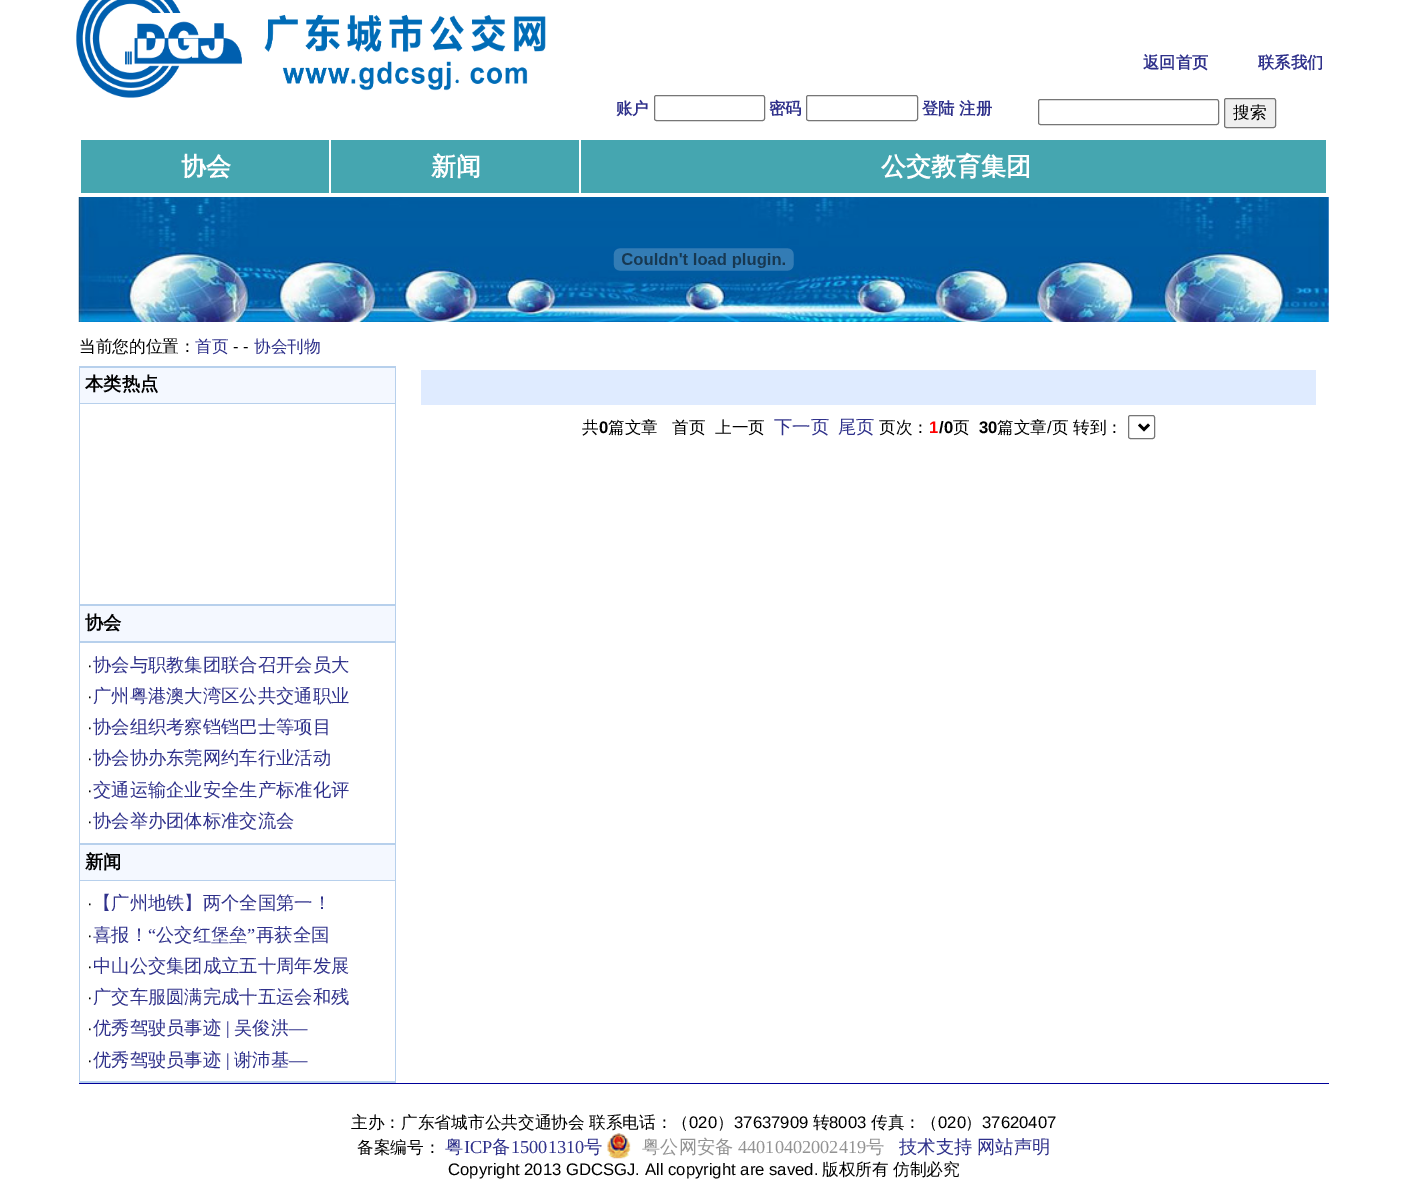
%!PS-Adobe-3.0
%%BoundingBox: 0 0 1407 1190
%%LanguageLevel: 3
%%Pages: 1
%%EndComments
%%BeginProlog
/rrect { 5 dict begin { /r /h /w /y /x } { exch def } forall
  x r add y moveto x w add y 2 copy h add r arct x w add y h add x 1 index r arct
  x y h add x y r arct x y 2 copy exch w add exch r arct closepath end } def
/drawimage { 5 dict begin { /h /w /y /x /name } { exch def } forall
  gsave x y translate w h scale
  w h 8 [w 0 0 h 0 0] name (r) file false 3 colorimage grestore end } def
%%EndProlog
%%BeginSetup
<< /PageSize [1407 1190] >> setpagedevice
%%EndSetup
%%Page: 1 1
0 1190 translate 1 -1 scale
4 setmiterlimit
1 setgray
0 0 1407 1190 rectfill
(images/1.raw) 76 0 470 98 drawimage
0.463 setgray
654.5 95.5 110 25 2 rrect stroke
806.5 95.5 111 25 2 rrect stroke
1038.5 99.5 180 25 2 rrect stroke
0.937 setgray
1224.5 98.5 51 29 2 rrect gsave fill grestore
0.463 setgray
stroke
0.271 0.651 0.69 setrgbcolor
81 140 248 53 rectfill
331 140 248 53 rectfill
581 140 745 53 rectfill
(images/2.raw) 78 197 1251 125 drawimage
(images/3.raw) 613 248 181 23 drawimage
0.718 0.816 0.925 setrgbcolor
79 366 317 717 rectfill
0.957 0.973 1 setrgbcolor
80 368 315 35 rectfill
1 setgray
80 404 315 200 rectfill
0.957 0.973 1 setrgbcolor
80 606 315 35 rectfill
1 setgray
80 643 315 200 rectfill
0.957 0.973 1 setrgbcolor
80 845 315 35 rectfill
1 setgray
80 881 315 200 rectfill
0.875 0.922 1 setrgbcolor
421 370 895 35 rectfill
0.463 setgray
1128.5 415.5 26 23 2 rrect stroke
0 setgray
2.5 setlinewidth
newpath 1139 424.5 moveto 1144 429.5 lineto 1149 424.5 lineto stroke
0 0 0.6 setrgbcolor
79 1083 1250 1 rectfill
(images/4.raw) 607 1133 24 26 drawimage
/WenQuanYiZenHei-Bold [16.25 0 0 -16.25 0 0] selectfont
0.184 0.192 0.545 setrgbcolor
1143 68 moveto (返回首页) show
1258 68 moveto (联系我们) show
616 114 moveto (账户) show
769 114 moveto (密码) show
922 114 moveto (登陆 注册) show
/WenQuanYiZenHei-Medium [16.7 0 0 -16.7 0 0] selectfont
0 setgray
1233 118 moveto (搜索) show
/WenQuanYiZenHei-Bold [25 0 0 -25 0 0] selectfont
1 setgray
181 175 moveto (协会) show
431 175 moveto (新闻) show
881 175 moveto (公交教育集团) show
/WenQuanYiZenHei-Medium [16.7 0 0 -16.7 0 0] selectfont
0 setgray
79 352 moveto (当前您的位置：) show
0.184 0.192 0.545 setrgbcolor
195 352 moveto (首页) show
/LiberationSans-Regular [16.7 0 0 -16.7 0 0] selectfont
0 setgray
233 352 moveto (- -) show
/WenQuanYiZenHei-Medium [16.7 0 0 -16.7 0 0] selectfont
0.184 0.192 0.545 setrgbcolor
254 352 moveto (协会刊物) show
/WenQuanYiZenHei-Bold [18.3 0 0 -18.3 0 0] selectfont
0 setgray
85 390 moveto (本类热点) show
85 629 moveto (协会) show
/LiberationSans-Regular [16.7 0 0 -16.7 0 0] selectfont
87 671 moveto (·) show
/WenQuanYiZenHei-Medium [18.3 0 0 -18.3 0 0] selectfont
0.184 0.192 0.545 setrgbcolor
93 671 moveto (协会与职教集团联合召开会员大) show
/LiberationSans-Regular [16.7 0 0 -16.7 0 0] selectfont
0 setgray
87 702 moveto (·) show
/WenQuanYiZenHei-Medium [18.3 0 0 -18.3 0 0] selectfont
0.184 0.192 0.545 setrgbcolor
93 702 moveto (广州粤港澳大湾区公共交通职业) show
/LiberationSans-Regular [16.7 0 0 -16.7 0 0] selectfont
0 setgray
87 733 moveto (·) show
/WenQuanYiZenHei-Medium [18.3 0 0 -18.3 0 0] selectfont
0.184 0.192 0.545 setrgbcolor
93 733 moveto (协会组织考察铛铛巴士等项目) show
/LiberationSans-Regular [16.7 0 0 -16.7 0 0] selectfont
0 setgray
87 764 moveto (·) show
/WenQuanYiZenHei-Medium [18.3 0 0 -18.3 0 0] selectfont
0.184 0.192 0.545 setrgbcolor
93 764 moveto (协会协办东莞网约车行业活动) show
/LiberationSans-Regular [16.7 0 0 -16.7 0 0] selectfont
0 setgray
87 796 moveto (·) show
/WenQuanYiZenHei-Medium [18.3 0 0 -18.3 0 0] selectfont
0.184 0.192 0.545 setrgbcolor
93 796 moveto (交通运输企业安全生产标准化评) show
/LiberationSans-Regular [16.7 0 0 -16.7 0 0] selectfont
0 setgray
87 827 moveto (·) show
/WenQuanYiZenHei-Medium [18.3 0 0 -18.3 0 0] selectfont
0.184 0.192 0.545 setrgbcolor
93 827 moveto (协会举办团体标准交流会) show
/WenQuanYiZenHei-Bold [18.3 0 0 -18.3 0 0] selectfont
0 setgray
85 868 moveto (新闻) show
/LiberationSans-Regular [16.7 0 0 -16.7 0 0] selectfont
87 909 moveto (·) show
/WenQuanYiZenHei-Medium [18.3 0 0 -18.3 0 0] selectfont
0.184 0.192 0.545 setrgbcolor
93 909 moveto (【广州地铁】两个全国第一！) show
93 941 moveto (喜报！) show
/LiberationSerif-Regular [18.3 0 0 -18.3 0 0] selectfont
148 941 moveto (“) show
/WenQuanYiZenHei-Medium [18.3 0 0 -18.3 0 0] selectfont
156 941 moveto (公交红堡垒) show
/LiberationSerif-Regular [18.3 0 0 -18.3 0 0] selectfont
247 941 moveto (”) show
/WenQuanYiZenHei-Medium [18.3 0 0 -18.3 0 0] selectfont
256 941 moveto (再获全国) show
/LiberationSans-Regular [16.7 0 0 -16.7 0 0] selectfont
0 setgray
87 941 moveto (·) show
87 972 moveto (·) show
/WenQuanYiZenHei-Medium [18.3 0 0 -18.3 0 0] selectfont
0.184 0.192 0.545 setrgbcolor
93 972 moveto (中山公交集团成立五十周年发展) show
/LiberationSans-Regular [16.7 0 0 -16.7 0 0] selectfont
0 setgray
87 1003 moveto (·) show
/WenQuanYiZenHei-Medium [18.3 0 0 -18.3 0 0] selectfont
0.184 0.192 0.545 setrgbcolor
93 1003 moveto (广交车服圆满完成十五运会和残) show
/LiberationSans-Regular [16.7 0 0 -16.7 0 0] selectfont
0 setgray
87 1034 moveto (·) show
/WenQuanYiZenHei-Medium [18.3 0 0 -18.3 0 0] selectfont
0.184 0.192 0.545 setrgbcolor
93 1034 moveto (优秀驾驶员事迹) show
/LiberationSerif-Regular [18.3 0 0 -18.3 0 0] selectfont
226 1034 moveto (|) show
/WenQuanYiZenHei-Medium [18.3 0 0 -18.3 0 0] selectfont
234 1034 moveto (吴俊洪) show
/LiberationSerif-Regular [18.3 0 0 -18.3 0 0] selectfont
289 1034 moveto (—) show
/LiberationSans-Regular [16.7 0 0 -16.7 0 0] selectfont
0 setgray
87 1066 moveto (·) show
/WenQuanYiZenHei-Medium [18.3 0 0 -18.3 0 0] selectfont
0.184 0.192 0.545 setrgbcolor
93 1066 moveto (优秀驾驶员事迹) show
/LiberationSerif-Regular [18.3 0 0 -18.3 0 0] selectfont
226 1066 moveto (|) show
/WenQuanYiZenHei-Medium [18.3 0 0 -18.3 0 0] selectfont
234 1066 moveto (谢沛基) show
/LiberationSerif-Regular [18.3 0 0 -18.3 0 0] selectfont
289 1066 moveto (—) show
/WenQuanYiZenHei-Medium [16.7 0 0 -16.7 0 0] selectfont
0 setgray
582 433 moveto (共) show
/LiberationSans-Bold [16.7 0 0 -16.7 0 0] selectfont
599 433 moveto (0) show
/WenQuanYiZenHei-Medium [16.7 0 0 -16.7 0 0] selectfont
608 433 moveto (篇文章) show
672 433 moveto (首页) show
715 433 moveto (上一页) show
/WenQuanYiZenHei-Medium [18.3 0 0 -18.3 0 0] selectfont
0.184 0.192 0.545 setrgbcolor
774 433 moveto (下一页) show
838 433 moveto (尾页) show
/WenQuanYiZenHei-Medium [16.7 0 0 -16.7 0 0] selectfont
0 setgray
879 433 moveto (页次：) show
/LiberationSans-Bold [16.7 0 0 -16.7 0 0] selectfont
1 0 0 setrgbcolor
929 433 moveto (1) show
0 setgray
939 433 moveto (/0) show
/WenQuanYiZenHei-Medium [16.7 0 0 -16.7 0 0] selectfont
953 433 moveto (页) show
/LiberationSans-Bold [16.7 0 0 -16.7 0 0] selectfont
979 433 moveto (30) show
/WenQuanYiZenHei-Medium [16.7 0 0 -16.7 0 0] selectfont
997 433 moveto (篇文章) show
/LiberationSans-Regular [16.7 0 0 -16.7 0 0] selectfont
1047 433 moveto (/) show
/WenQuanYiZenHei-Medium [16.7 0 0 -16.7 0 0] selectfont
1052 433 moveto (页) show
1073 433 moveto (转到：) show
351 1128 moveto (主办：广东省城市公共交通协会) show
589 1128 moveto (联系电话：（) show
/LiberationSans-Regular [16.7 0 0 -16.7 0 0] selectfont
689 1128 moveto (020) show
/WenQuanYiZenHei-Medium [16.7 0 0 -16.7 0 0] selectfont
717 1128 moveto (）) show
/LiberationSans-Regular [16.7 0 0 -16.7 0 0] selectfont
734 1128 moveto (37637909) show
/WenQuanYiZenHei-Medium [16.7 0 0 -16.7 0 0] selectfont
813 1128 moveto (转) show
/LiberationSans-Regular [16.7 0 0 -16.7 0 0] selectfont
829 1128 moveto (8003) show
/WenQuanYiZenHei-Medium [16.7 0 0 -16.7 0 0] selectfont
871 1128 moveto (传真：（) show
/LiberationSans-Regular [16.7 0 0 -16.7 0 0] selectfont
938 1128 moveto (020) show
/WenQuanYiZenHei-Medium [16.7 0 0 -16.7 0 0] selectfont
965 1128 moveto (）) show
/LiberationSans-Regular [16.7 0 0 -16.7 0 0] selectfont
982 1128 moveto (37620407) show
/WenQuanYiZenHei-Medium [16.7 0 0 -16.7 0 0] selectfont
357 1153 moveto (备案编号：) show
/WenQuanYiZenHei-Medium [18.3 0 0 -18.3 0 0] selectfont
0.184 0.192 0.545 setrgbcolor
445 1153 moveto (粤) show
/LiberationSerif-Regular [18.3 0 0 -18.3 0 0] selectfont
464 1153 moveto (ICP) show
/WenQuanYiZenHei-Medium [18.3 0 0 -18.3 0 0] selectfont
492 1153 moveto (备) show
/LiberationSerif-Regular [18.3 0 0 -18.3 0 0] selectfont
511 1153 moveto (15001310) show
/WenQuanYiZenHei-Medium [18.3 0 0 -18.3 0 0] selectfont
584 1153 moveto (号) show
0.576 setgray
642 1153 moveto (粤公网安备) show
/LiberationSerif-Regular [18.3 0 0 -18.3 0 0] selectfont
738 1153 moveto (44010402002419) show
/WenQuanYiZenHei-Medium [18.3 0 0 -18.3 0 0] selectfont
866 1153 moveto (号) show
0.184 0.192 0.545 setrgbcolor
899 1153 moveto (技术支持) show
977 1153 moveto (网站声明) show
/LiberationSans-Regular [16.7 0 0 -16.7 0 0] selectfont
0 setgray
448 1175 moveto (Copyright 2013 GDCSGJ. All copyright are saved.) show
/WenQuanYiZenHei-Medium [16.7 0 0 -16.7 0 0] selectfont
822 1175 moveto (版权所有) show
893 1175 moveto (仿制必究) show
showpage
%%EOF
